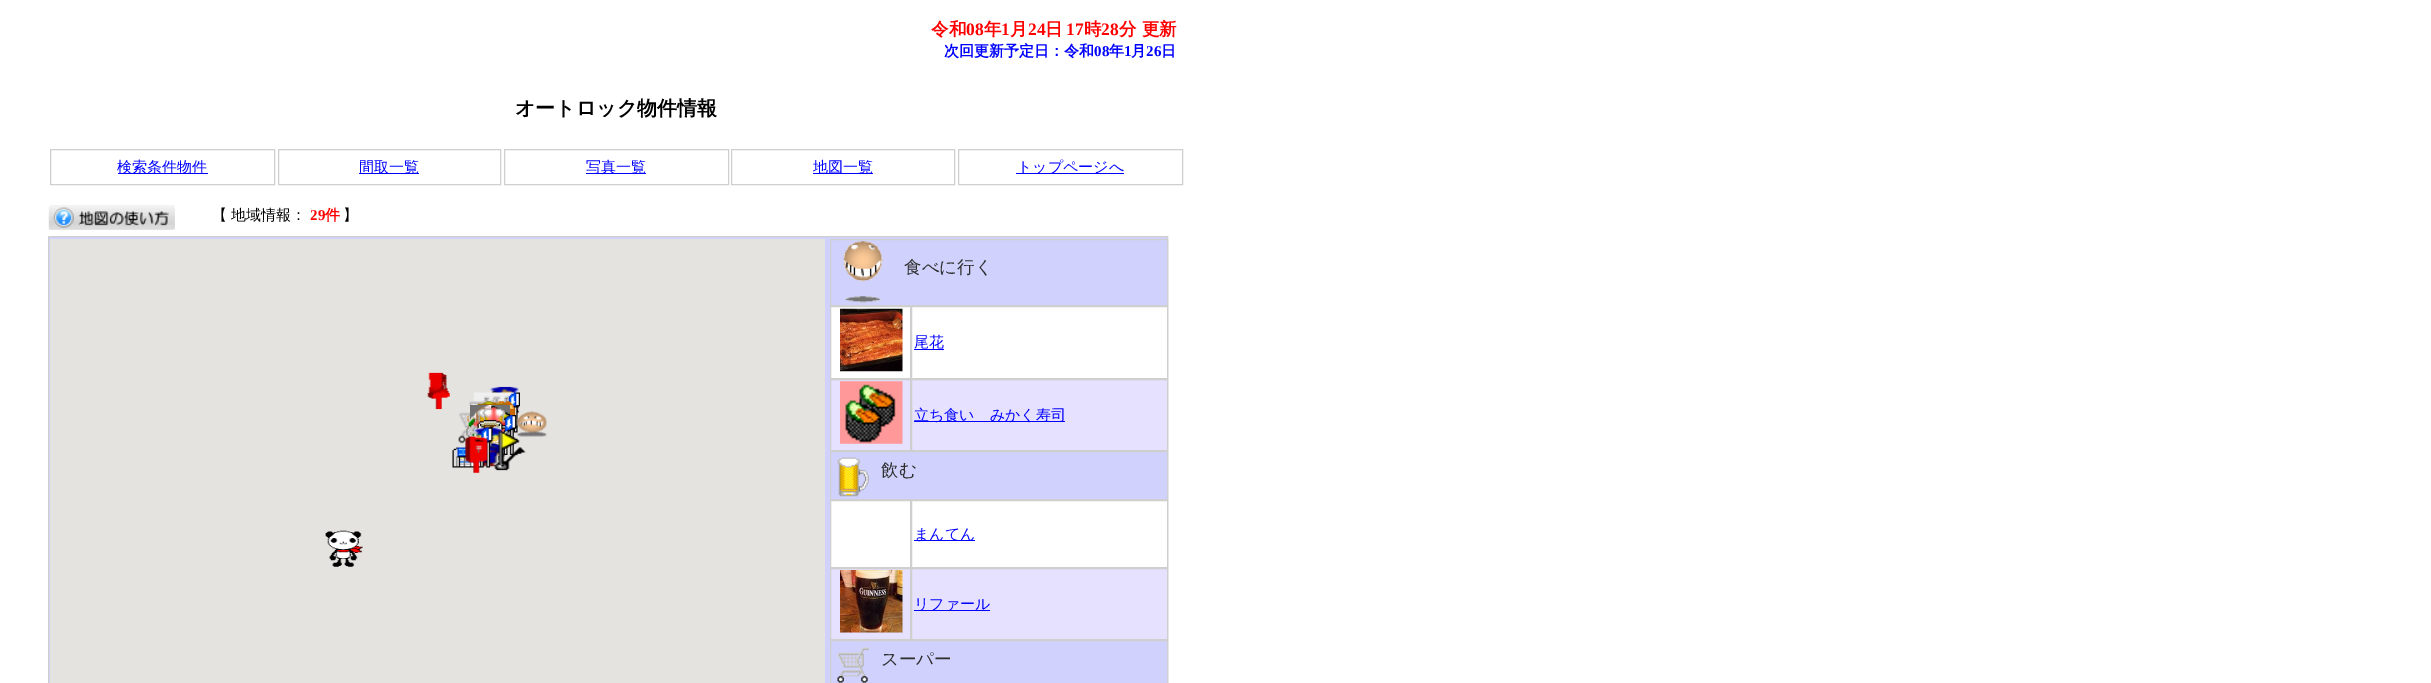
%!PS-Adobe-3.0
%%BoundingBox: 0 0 2431 683
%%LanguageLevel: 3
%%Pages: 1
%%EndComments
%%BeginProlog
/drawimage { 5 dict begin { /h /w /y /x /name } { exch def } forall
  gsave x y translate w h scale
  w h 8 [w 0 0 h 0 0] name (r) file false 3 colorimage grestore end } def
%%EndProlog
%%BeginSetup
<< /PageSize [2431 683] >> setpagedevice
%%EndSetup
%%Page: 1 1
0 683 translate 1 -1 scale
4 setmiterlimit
1 setgray
0 0 2431 683 rectfill
0.812 setgray
50.5 149.5 224 35 rectstroke
0 0 1 setrgbcolor
118 173 90 1 rectfill
0.812 setgray
278.5 149.5 222 35 rectstroke
0 0 1 setrgbcolor
359 173 60 1 rectfill
0.812 setgray
504.5 149.5 224 35 rectstroke
0 0 1 setrgbcolor
586 173 60 1 rectfill
0.812 setgray
731.5 149.5 223 35 rectstroke
0 0 1 setrgbcolor
813 173 60 1 rectfill
0.812 setgray
958.5 149.5 224 35 rectstroke
0 0 1 setrgbcolor
1016 173 108 1 rectfill
(images/1.raw) 48 205 127 25 drawimage
0.816 0.824 0.992 setrgbcolor
newpath 48.5 236.5 moveto 1167.5 236.5 lineto 1167.5 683.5 lineto 48.5 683.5 lineto closepath gsave fill grestore
0.812 setgray
stroke
0.898 0.89 0.875 setrgbcolor
50 239 775 444 rectfill
(images/2.raw) 427 372 23 38 drawimage
(images/3.raw) 489 386 30 29 drawimage
(images/4.raw) 499 390 19 25 drawimage
(images/5.raw) 491 391 28 22 drawimage
(images/6.raw) 473 392 41 41 drawimage
(images/7.raw) 468 396 33 12 drawimage
(images/8.raw) 508 392 12 41 drawimage
(images/10.raw) 483 401 33 15 drawimage
(images/9.raw) 482 401 14 3 drawimage
(images/11.raw) 477 402 34 31 drawimage
(images/12.raw) 470 405 40 31 drawimage
(images/19.raw) 516 411 31 26 drawimage
(images/14.raw) 491 406 27 27 drawimage
(images/20.raw) 467 414 3 15 drawimage
(images/17.raw) 458 411 12 33 drawimage
(images/28.raw) 468 436 2 2 drawimage
(images/13.raw) 466 407 38 31 drawimage
(images/16.raw) 477 408 32 28 drawimage
(images/18.raw) 482 408 32 28 drawimage
(images/15.raw) 473 407 35 41 drawimage
(images/22.raw) 477 419 34 18 drawimage
(images/21.raw) 503 415 14 40 drawimage
(images/29.raw) 494 438 12 20 drawimage
(images/23.raw) 468 426 33 36 drawimage
(images/25.raw) 473 428 30 39 drawimage
(images/24.raw) 452 427 41 41 drawimage
(images/26.raw) 494 431 32 40 drawimage
(images/27.raw) 465 435 23 39 drawimage
(images/30.raw) 325 530 38 37 drawimage
0.812 setgray
830.5 239.5 337 66 rectstroke
(images/31.raw) 843 241 40 62 drawimage
1 setgray
newpath 830.5 306.5 moveto 910.5 306.5 lineto 910.5 378.5 lineto 830.5 378.5 lineto closepath gsave fill grestore
0.812 setgray
stroke
(images/32.raw) 840 308 63 64 drawimage
1 setgray
newpath 911.5 306.5 moveto 1167.5 306.5 lineto 1167.5 378.5 lineto 911.5 378.5 lineto closepath gsave fill grestore
0.812 setgray
stroke
0 0 1 setrgbcolor
914 349 30 1 rectfill
0.902 0.882 1 setrgbcolor
newpath 830.5 379.5 moveto 910.5 379.5 lineto 910.5 450.5 lineto 830.5 450.5 lineto closepath gsave fill grestore
0.812 setgray
stroke
(images/33.raw) 840 381 63 63 drawimage
0.902 0.882 1 setrgbcolor
newpath 911.5 379.5 moveto 1167.5 379.5 lineto 1167.5 450.5 lineto 911.5 450.5 lineto closepath gsave fill grestore
0.812 setgray
stroke
0 0 1 setrgbcolor
914 421 151 1 rectfill
0.812 setgray
830.5 451.5 337 48 rectstroke
(images/34.raw) 837 457 32 40 drawimage
1 setgray
newpath 830.5 500.5 moveto 910.5 500.5 lineto 910.5 567.5 lineto 830.5 567.5 lineto closepath gsave fill grestore
0.812 setgray
stroke
1 setgray
newpath 911.5 500.5 moveto 1167.5 500.5 lineto 1167.5 567.5 lineto 911.5 567.5 lineto closepath gsave fill grestore
0.812 setgray
stroke
0 0 1 setrgbcolor
914 540 61 1 rectfill
0.902 0.882 1 setrgbcolor
newpath 830.5 568.5 moveto 910.5 568.5 lineto 910.5 639.5 lineto 830.5 639.5 lineto closepath gsave fill grestore
0.812 setgray
stroke
(images/35.raw) 840 570 63 63 drawimage
0.902 0.882 1 setrgbcolor
newpath 911.5 568.5 moveto 1167.5 568.5 lineto 1167.5 639.5 lineto 911.5 639.5 lineto closepath gsave fill grestore
0.812 setgray
stroke
0 0 1 setrgbcolor
914 610 76 1 rectfill
0.812 setgray
830.5 640.5 337 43 rectstroke
(images/36.raw) 837 647 32 36 drawimage
/WenQuanYiZenHei-Bold [17.5 0 0 -17.5 0 0] selectfont
1 0 0 setrgbcolor
931 35 moveto (令和) show
/LiberationSerif-Bold [17.5 0 0 -17.5 0 0] selectfont
966 35 moveto (08) show
/WenQuanYiZenHei-Bold [17.5 0 0 -17.5 0 0] selectfont
984 35 moveto (年) show
/LiberationSerif-Bold [17.5 0 0 -17.5 0 0] selectfont
1001 35 moveto (1) show
/WenQuanYiZenHei-Bold [17.5 0 0 -17.5 0 0] selectfont
1010 35 moveto (月) show
/LiberationSerif-Bold [17.5 0 0 -17.5 0 0] selectfont
1028 35 moveto (24) show
/WenQuanYiZenHei-Bold [17.5 0 0 -17.5 0 0] selectfont
1045 35 moveto (日) show
/LiberationSerif-Bold [17.5 0 0 -17.5 0 0] selectfont
1066 35 moveto (17) show
/WenQuanYiZenHei-Bold [17.5 0 0 -17.5 0 0] selectfont
1084 35 moveto (時) show
/LiberationSerif-Bold [17.5 0 0 -17.5 0 0] selectfont
1101 35 moveto (28) show
/WenQuanYiZenHei-Bold [17.5 0 0 -17.5 0 0] selectfont
1119 35 moveto (分 更新) show
/WenQuanYiZenHei-Bold [15 0 0 -15 0 0] selectfont
0 0 1 setrgbcolor
944 56 moveto (次回更新予定日：令和) show
/LiberationSerif-Bold [15 0 0 -15 0 0] selectfont
1094 56 moveto (08) show
/WenQuanYiZenHei-Bold [15 0 0 -15 0 0] selectfont
1109 56 moveto (年) show
/LiberationSerif-Bold [15 0 0 -15 0 0] selectfont
1124 56 moveto (1) show
/WenQuanYiZenHei-Bold [15 0 0 -15 0 0] selectfont
1131 56 moveto (月) show
/LiberationSerif-Bold [15 0 0 -15 0 0] selectfont
1146 56 moveto (26) show
/WenQuanYiZenHei-Bold [15 0 0 -15 0 0] selectfont
1161 56 moveto (日) show
/WenQuanYiZenHei-Bold [20 0 0 -20 0 0] selectfont
0 setgray
515 115 moveto (オートロック物件情報) show
/WenQuanYiZenHei-Medium [15 0 0 -15 0 0] selectfont
0 0 1 setrgbcolor
117 172 moveto (検索条件物件) show
359 172 moveto (間取一覧) show
586 172 moveto (写真一覧) show
813 172 moveto (地図一覧) show
1017 172 moveto (トップページへ) show
0 setgray
212 220 moveto (【) show
231 220 moveto (地域情報：) show
/LiberationSerif-Bold [15 0 0 -15 0 0] selectfont
1 0 0 setrgbcolor
310 220 moveto (29) show
/WenQuanYiZenHei-Bold [15 0 0 -15 0 0] selectfont
325 220 moveto (件) show
/WenQuanYiZenHei-Medium [15 0 0 -15 0 0] selectfont
0 setgray
343 220 moveto (】) show
/WenQuanYiZenHei-Medium [17.5 0 0 -17.5 0 0] selectfont
0.184 setgray
904 273 moveto (食べに行く) show
/WenQuanYiZenHei-Medium [15 0 0 -15 0 0] selectfont
0 0 1 setrgbcolor
914 347 moveto (尾花) show
914 420 moveto (立ち食い　みかく寿司) show
/WenQuanYiZenHei-Medium [17.5 0 0 -17.5 0 0] selectfont
0.184 setgray
881 476 moveto (飲む) show
/WenQuanYiZenHei-Medium [15 0 0 -15 0 0] selectfont
0 0 1 setrgbcolor
914 539 moveto (まんてん) show
914 609 moveto (リファール) show
/WenQuanYiZenHei-Medium [17.5 0 0 -17.5 0 0] selectfont
0.184 setgray
881 665 moveto (スーパー) show
showpage
%%EOF
